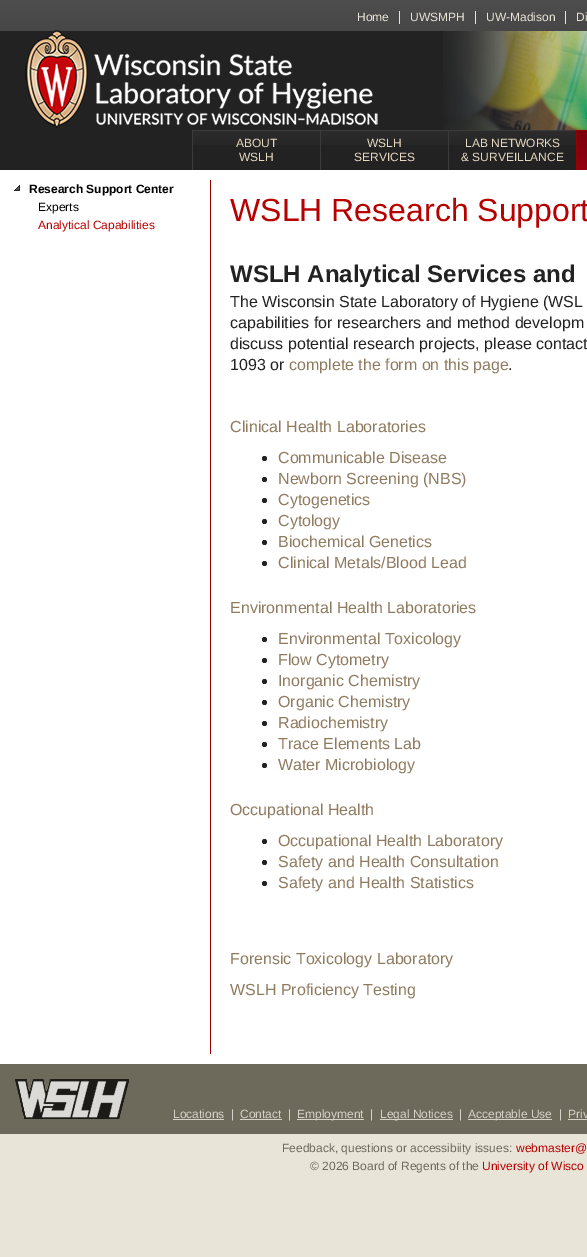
%!PS-Adobe-3.0
%%BoundingBox: 0 0 587 1257
%%LanguageLevel: 3
%%Pages: 1
%%EndComments
%%BeginProlog
/drawimage { 5 dict begin { /h /w /y /x /name } { exch def } forall
  gsave x y translate w h scale
  w h 8 [w 0 0 h 0 0] name (r) file false 3 colorimage grestore end } def
%%EndProlog
%%BeginSetup
<< /PageSize [587 1257] >> setpagedevice
%%EndSetup
%%Page: 1 1
0 1257 translate 1 -1 scale
4 setmiterlimit
0.91 0.894 0.847 setrgbcolor
0 0 587 1257 rectfill
(images/1.raw) 0 0 587 31 drawimage
0.133 setgray
0 31 587 139 rectfill
0.91 0.894 0.847 setrgbcolor
399 11 1 13 rectfill
475 11 1 13 rectfill
565 11 1 13 rectfill
(images/2.raw) 25 30 353 98 drawimage
(images/3.raw) 443 31 144 99 drawimage
(images/4.raw) 193 130 127 15 drawimage
0.231 setgray
192 130 1 40 rectfill
(images/4.raw) 321 130 127 15 drawimage
320 130 1 40 rectfill
(images/4.raw) 449 130 127 15 drawimage
448 130 1 40 rectfill
(images/5.raw) 577 130 10 40 drawimage
0.6 0 0 setrgbcolor
576 130 1 40 rectfill
1 setgray
0 170 587 894 rectfill
0.6 0 0 setrgbcolor
210 180 1 874 rectfill
(images/6.raw) 14 185 6 6 drawimage
0.133 setgray
newpath 264.5 458.5 2.5 0 360 arc closepath fill
newpath 264.5 479.5 2.5 0 360 arc closepath fill
newpath 264.5 500.5 2.5 0 360 arc closepath fill
newpath 264.5 521.5 2.5 0 360 arc closepath fill
newpath 264.5 542.5 2.5 0 360 arc closepath fill
newpath 264.5 563.5 2.5 0 360 arc closepath fill
newpath 264.5 639.5 2.5 0 360 arc closepath fill
newpath 264.5 660.5 2.5 0 360 arc closepath fill
newpath 264.5 681.5 2.5 0 360 arc closepath fill
newpath 264.5 702.5 2.5 0 360 arc closepath fill
newpath 264.5 723.5 2.5 0 360 arc closepath fill
newpath 264.5 744.5 2.5 0 360 arc closepath fill
newpath 264.5 765.5 2.5 0 360 arc closepath fill
newpath 264.5 841.5 2.5 0 360 arc closepath fill
newpath 264.5 862.5 2.5 0 360 arc closepath fill
newpath 264.5 883.5 2.5 0 360 arc closepath fill
0.431 0.416 0.357 setrgbcolor
0 1064 587 70 rectfill
(images/7.raw) 15 1079 114 40 drawimage
0.835 0.824 0.788 setrgbcolor
173 1119 51 1 rectfill
240 1119 42 1 rectfill
297 1119 67 1 rectfill
380 1119 73 1 rectfill
468 1119 84 1 rectfill
568 1119 19 1 rectfill
/LiberationSans-Regular [12 0 0 -12 0 0] selectfont
0.91 0.894 0.847 setrgbcolor
357 21 moveto (Home) show
410 21 moveto (UWSMPH) show
486 21 moveto (UW-Madison) show
576 21 moveto (Di) show
0.906 0.851 0.757 setrgbcolor
236 147 moveto (ABOUT) show
239 161 moveto (WSLH) show
367 147 moveto (WSLH) show
354 161 moveto (SERVICES) show
465 147 moveto (LAB NETWORKS) show
461 161 moveto (& SURVEILLANCE) show
/LiberationSans-Bold [12 0 0 -12 0 0] selectfont
0 setgray
29 193 moveto (Research Support Center) show
/LiberationSans-Regular [12 0 0 -12 0 0] selectfont
38 211 moveto (Experts) show
0.718 0.004 0.004 setrgbcolor
38 229 moveto (Analytical Capabilities) show
/LiberationSans-Regular [32 0 0 -32 0 0] selectfont
230 221 moveto (WSLH Research Support) show
/LiberationSans-Bold [24 0 0 -24 0 0] selectfont
0.133 setgray
230 282 moveto (WSLH Analytical Services and) show
/LiberationSans-Regular [16 0 0 -16 0 0] selectfont
230 307 moveto (The Wisconsin State Laboratory of Hygiene \(WSL) show
230 328 moveto (capabilities for researchers and method developm) show
230 349 moveto (discuss potential research projects, please contact) show
230 370 moveto (1093 or) show
0.561 0.482 0.373 setrgbcolor
289 370 moveto (complete the form on this page) show
0.133 setgray
508 370 moveto (.) show
0.561 0.482 0.373 setrgbcolor
230 432 moveto (Clinical Health Laboratories) show
278 463 moveto (Communicable Disease) show
278 484 moveto (Newborn Screening \(NBS\)) show
278 505 moveto (Cytogenetics) show
278 526 moveto (Cytology) show
278 547 moveto (Biochemical Genetics) show
278 568 moveto (Clinical Metals/Blood Lead) show
230 613 moveto (Environmental Health Laboratories) show
278 644 moveto (Environmental Toxicology) show
278 665 moveto (Flow Cytometry) show
278 686 moveto (Inorganic Chemistry) show
278 707 moveto (Organic Chemistry) show
278 728 moveto (Radiochemistry) show
278 749 moveto (Trace Elements Lab) show
278 770 moveto (Water Microbiology) show
230 815 moveto (Occupational Health) show
278 846 moveto (Occupational Health Laboratory) show
278 867 moveto (Safety and Health Consultation) show
278 888 moveto (Safety and Health Statistics) show
230 964 moveto (Forensic Toxicology Laboratory) show
230 995 moveto (WSLH Proficiency Testing) show
/LiberationSans-Regular [12 0 0 -12 0 0] selectfont
0.835 0.824 0.788 setrgbcolor
173 1118 moveto (Locations) show
231 1118 moveto (|) show
240 1118 moveto (Contact) show
288 1118 moveto (|) show
297 1118 moveto (Employment) show
370 1118 moveto (|) show
380 1118 moveto (Legal Notices) show
459 1118 moveto (|) show
468 1118 moveto (Acceptable Use) show
559 1118 moveto (|) show
568 1118 moveto (Priv) show
0.431 0.416 0.357 setrgbcolor
282 1152 moveto (Feedback, questions or accessibiity issues:) show
0.718 0.004 0.004 setrgbcolor
516 1152 moveto (webmaster@) show
0.431 0.416 0.357 setrgbcolor
310 1170 moveto (© 2026 Board of Regents of the) show
0.718 0.004 0.004 setrgbcolor
482 1170 moveto (University of Wisco) show
showpage
%%EOF
